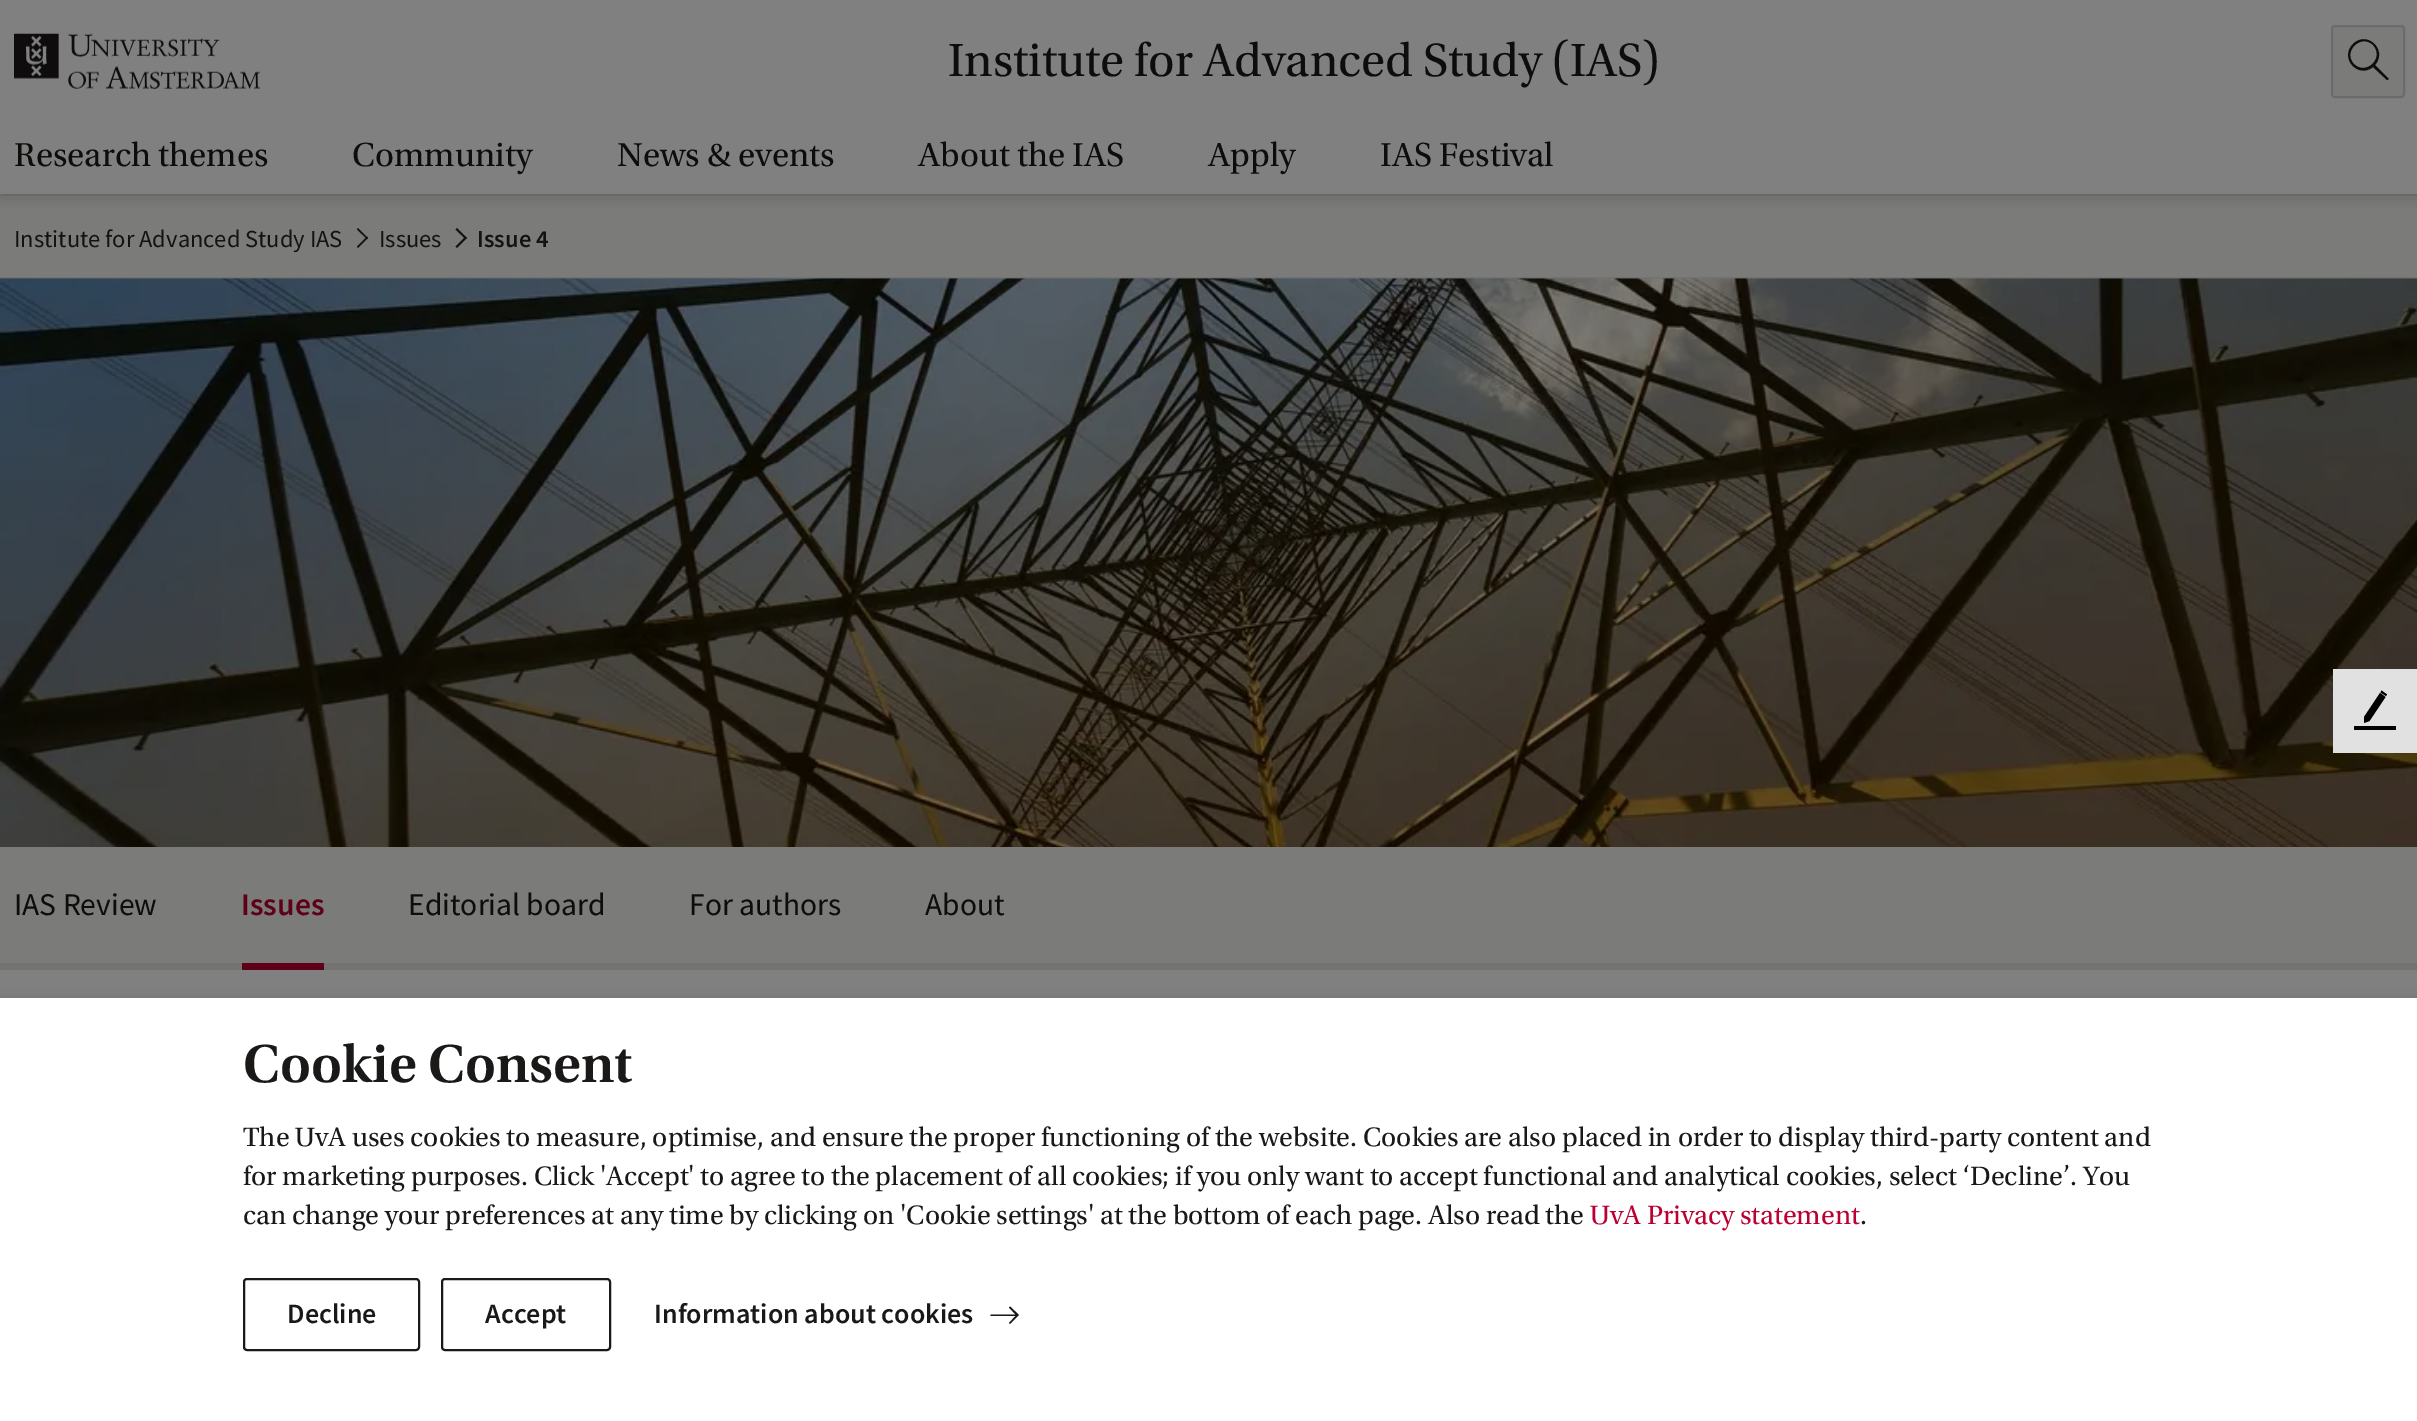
%!PS-Adobe-3.0
%%BoundingBox: 0 0 2417 1421
%%LanguageLevel: 3
%%Pages: 1
%%EndComments
%%BeginProlog
/setalpha { dup .setfillconstantalpha .setstrokeconstantalpha } def
/rrect { 5 dict begin { /r /h /w /y /x } { exch def } forall
  x r add y moveto x w add y 2 copy h add r arct x w add y h add x 1 index r arct
  x y h add x y r arct x y 2 copy exch w add exch r arct closepath end } def
/softshadow { 12 dict begin { /a /b /q /h /w /y /x } { exch def } forall gsave /was 0 def
  9 -2 -9 { dup b mul 4 div /e exch def 1 sub .425 mul 2.718 exch exp 1 add a .99 .min exch div /now exch def
    1 1 now sub 1 was sub div sub setalpha /was now def
    w h .min e 2 mul add 0 gt { x e sub y e sub w e 2 mul add h e 2 mul add
      q e add b .6 mul add w h .min 2 div e add .min 0 .max rrect fill } if } for grestore end } def
/drawimage { 5 dict begin { /h /w /y /x /name } { exch def } forall
  gsave x y translate w h scale
  w h 8 [w 0 0 h 0 0] name (r) file false 3 colorimage grestore end } def
%%EndProlog
%%BeginSetup
<< /PageSize [2417 1421] /PageUsesTransparency true >> setpagedevice
%%EndSetup
%%Page: 1 1
0 .pushpdf14devicefilter
0 1421 translate 1 -1 scale
4 setmiterlimit
0.502 setgray
0 0 2417 1421 rectfill
0.482 0.482 0.478 setrgbcolor
0 196 2417 81 rectfill
0.455 0.451 0.447 setrgbcolor
0 194 2417 2 rectfill
gsave
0 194 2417 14 rectclip
0 setgray
0 126 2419 72 0 9 0.15 softshadow
grestore
0.502 setgray
0 116 2417 7 rectfill
(images/1.raw) 14 33 247 56 drawimage
0.482 0.482 0.478 setrgbcolor
2332 26 72 71 3 rrect gsave fill grestore
0.424 0.42 0.416 setrgbcolor
2 setlinewidth
stroke
0.055 0.051 0.047 setrgbcolor
newpath 2373 67 moveto 2358 79 2339 58 2353 44 curveto 2367 30 2388 50 2375 65 curveto 2389 79 lineto 2387 80 lineto closepath 2354 64 moveto 2366 76 2385 58 2373 45 curveto 2361 33 2342 52 2354 64 curveto closepath fill
0.455 0.451 0.447 setrgbcolor
0 277 2417 1 rectfill
0.078 0.075 0.071 setrgbcolor
newpath 357 229.5 moveto 358 228 lineto 368 238 lineto 367 239 lineto closepath fill
newpath 357 246.5 moveto 367 236.5 lineto 368 238 lineto 358 248 lineto closepath fill
newpath 455.5 229.5 moveto 457 228 lineto 467 238 lineto 465.5 239 lineto closepath fill
newpath 455.5 246.5 moveto 465.5 236.5 lineto 467 238 lineto 457 248 lineto closepath fill
gsave newpath 0 278 moveto 2417 278 lineto 2417 279 lineto 0 279 lineto closepath clip newpath
<< /ShadingType 2 /ColorSpace /DeviceRGB /Coords [0 563 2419 563] /Extend [true true] /Function << /FunctionType 2 /Domain [0 1] /C0 [0.424 0.42 0.416] /C1 [0.455 0.451 0.447] /N 1 >> >> shfill grestore
(images/2.raw) 0 278 2417 569 drawimage
0.882 setgray
2333 669 84 84 rectfill
0 setgray
newpath 2385.5 697 moveto 2369.5 721 lineto 2364 723 lineto 2364 717 lineto 2380 693 lineto closepath fill
newpath 2380.5 692.5 moveto 2381.5 690.5 lineto 2387 694.5 lineto 2386 696 lineto closepath fill
2354 726 42 4 rectfill
0.482 0.482 0.478 setrgbcolor
0 847 2417 116 rectfill
0.455 0.451 0.447 setrgbcolor
0 963 2417 7 rectfill
0.373 0 0.098 setrgbcolor
242 963 82 7 rectfill
0 setgray
0 999 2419 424 0 5 0.15 softshadow
1 setgray
0 998 2417 423 rectfill
0.106 0.098 0.094 setrgbcolor
244 1279 175 71 3 rrect stroke
442 1279 168 71 3 rrect stroke
newpath 1015.5 1316 moveto 990.5 1316 lineto 990.5 1314.5 lineto 1015.5 1314.5 lineto 1009 1307.5 lineto 1010 1306.5 lineto 1019 1315 lineto 1010 1324 lineto 1009 1323 lineto closepath fill
/Utopia-Regular [49 0 0 -49 0 0] selectfont
0.055 0.051 0.047 setrgbcolor
948 76 moveto (Institute for Advanced Study \(IAS\)) show
/Utopia-Regular [35 0 0 -35 0 0] selectfont
14 166 moveto (Research themes) show
352 166 moveto (Community) show
617 166 moveto (News & events) show
918 166 moveto (About the IAS) show
1208 166 moveto (Apply) show
1380 166 moveto (IAS Festival) show
/SourceSansPro-Regular [24.5 0 0 -24.5 0 0] selectfont
0.078 0.075 0.071 setrgbcolor
14 247 moveto (Institute for Advanced Study IAS) show
379 247 moveto (Issues) show
/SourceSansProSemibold-SemiBold [24.5 0 0 -24.5 0 0] selectfont
477 247 moveto (Issue 4) show
/SourceSansPro-Regular [31.5 0 0 -31.5 0 0] selectfont
0.055 0.051 0.047 setrgbcolor
14 915 moveto (IAS Review) show
/SourceSansProSemibold-SemiBold [31.5 0 0 -31.5 0 0] selectfont
0.373 0 0.098 setrgbcolor
241 915 moveto (Issues) show
/SourceSansPro-Regular [31.5 0 0 -31.5 0 0] selectfont
0.055 0.051 0.047 setrgbcolor
408 915 moveto (Editorial board) show
689 915 moveto (For authors) show
925 915 moveto (About) show
/Utopia-SemiBold [56 0 0 -56 0 0] selectfont
0.106 0.098 0.094 setrgbcolor
243 1082 moveto (Cookie Consent) show
/Utopia-Regular [28 0 0 -28 0 0] selectfont
243 1146 moveto (The UvA uses cookies to measure, optimise, and ensure the proper functioning of the website. Cookies are also placed in order to display third-party content and) show
243 1185 moveto (for marketing purposes. Click 'Accept' to agree to the placement of all cookies; if you only want to accept functional and analytical cookies, select ‘Decline’. You) show
243 1224 moveto (can change your preferences at any time by clicking on 'Cookie settings' at the bottom of each page. Also read the) show
0.741 0 0.196 setrgbcolor
1590 1224 moveto (UvA Privacy statement) show
0.106 0.098 0.094 setrgbcolor
1860 1224 moveto (.) show
/SourceSansProSemibold-SemiBold [28 0 0 -28 0 0] selectfont
287 1323 moveto (Decline) show
485 1323 moveto (Accept) show
654 1323 moveto (Information about cookies) show
.poppdf14devicefilter showpage
%%EOF
